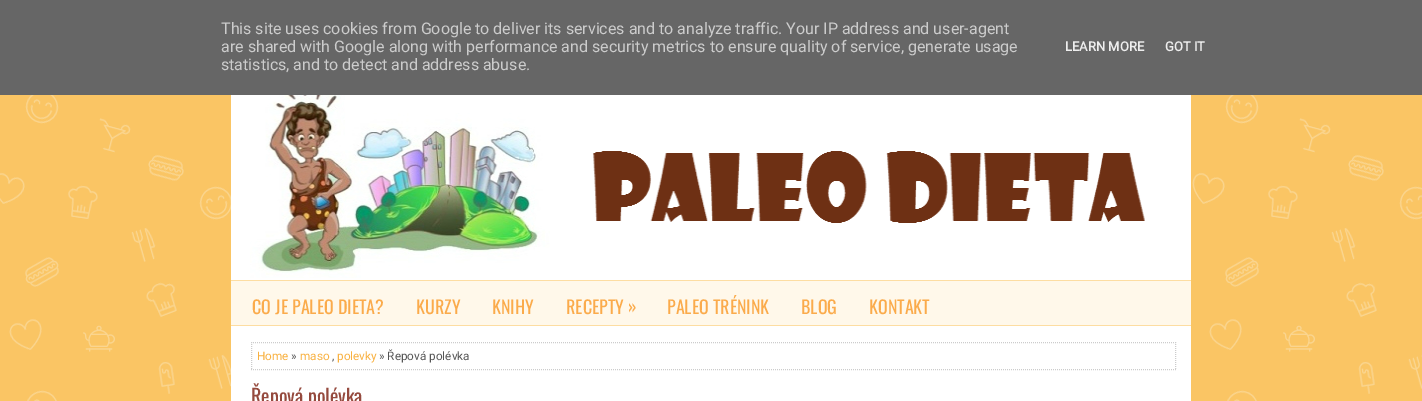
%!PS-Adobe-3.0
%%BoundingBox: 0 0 1422 401
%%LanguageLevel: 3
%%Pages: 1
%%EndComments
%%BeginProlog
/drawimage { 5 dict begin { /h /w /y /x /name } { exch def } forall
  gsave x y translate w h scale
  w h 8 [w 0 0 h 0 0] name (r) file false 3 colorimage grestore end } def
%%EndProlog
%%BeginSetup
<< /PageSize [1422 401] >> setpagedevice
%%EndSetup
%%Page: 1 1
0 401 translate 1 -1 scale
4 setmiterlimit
1 setgray
0 0 1422 401 rectfill
(images/1.raw) 0 95 1422 306 drawimage
0.4 setgray
0 0 1422 95 rectfill
1 setgray
231 95 960 306 rectfill
(images/2.raw) 250 95 895 183 drawimage
1 0.973 0.918 setrgbcolor
231 281 960 44 rectfill
0.992 0.867 0.635 setrgbcolor
231 280 960 1 rectfill
231 325 960 1 rectfill
0.8 setgray
[1 1] 0 setdash
newpath 251 342.5 moveto 1176 342.5 lineto stroke
newpath 1175.5 342 moveto 1175.5 370 lineto stroke
newpath 251 369.5 moveto 1176 369.5 lineto stroke
newpath 251.5 342 moveto 251.5 370 lineto stroke
/Roboto-Regular [16 0 0 -16 0 0] selectfont
221 34 moveto (This site uses cookies from Google to deliver its services and to analyze traffic. Your IP address and user-agent) show
221 52 moveto (are shared with Google along with performance and security metrics to ensure quality of service, generate usage) show
221 70 moveto (statistics, and to detect and address abuse.) show
/Roboto-Bold [13 0 0 -13 0 0] selectfont
0.933 setgray
1065 51 moveto (LEARN MORE) show
1165 51 moveto (GOT IT) show
/Oswald-Regular [18 0 0 -18 0 0] selectfont
0.984 0.671 0.294 setrgbcolor
252 314 moveto (CO JE PALEO DIETA?) show
416 314 moveto (KURZY) show
492 314 moveto (KNIHY) show
566 314 moveto (RECEPTY) show
628 313 moveto (») show
667 314 moveto (PALEO TRÉNINK) show
801 314 moveto (BLOG) show
869 314 moveto (KONTAKT) show
/Roboto-Regular [11.75 0 0 -11.75 0 0] selectfont
0.976 0.694 0.251 setrgbcolor
257 360 moveto (Home) show
0.333 setgray
291 360 moveto (») show
0.976 0.694 0.251 setrgbcolor
300 360 moveto (maso) show
0.333 setgray
332 360 moveto (,) show
0.976 0.694 0.251 setrgbcolor
337 360 moveto (polevky) show
0.333 setgray
379 360 moveto (» Řepová polévka) show
/Oswald-Regular [20 0 0 -20 0 0] selectfont
0.584 0.29 0.243 setrgbcolor
251 404 moveto (Řepová polévka) show
showpage
%%EOF
